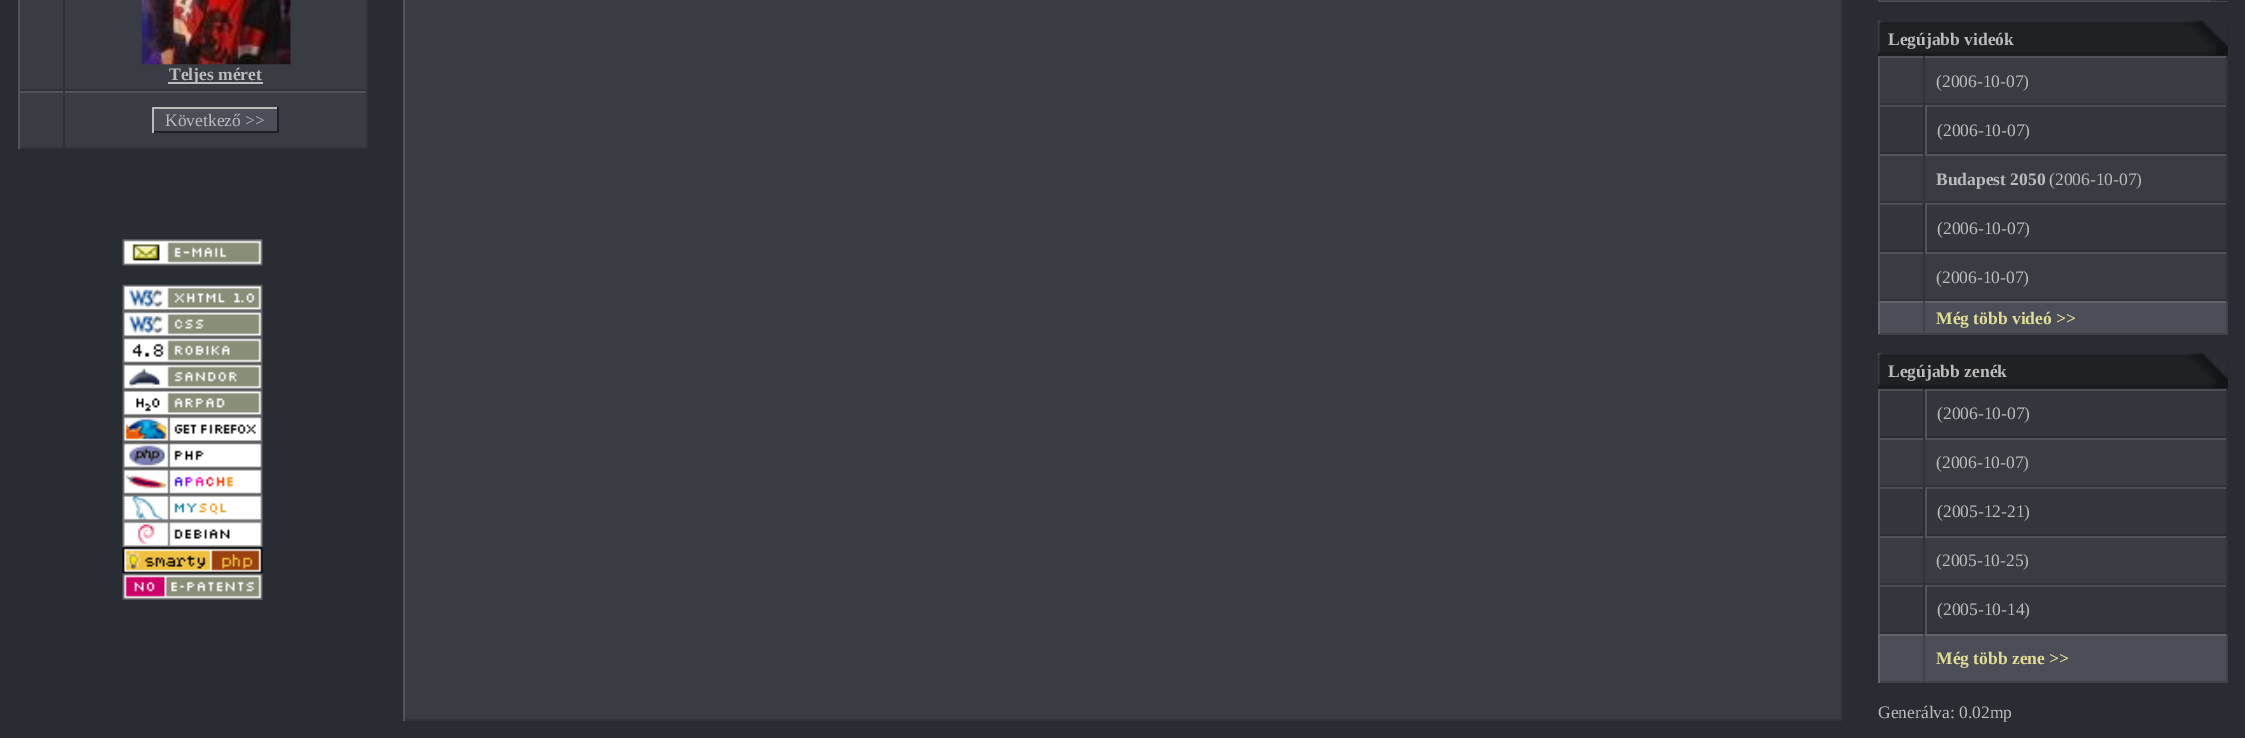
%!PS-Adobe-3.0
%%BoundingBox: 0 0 2245 738
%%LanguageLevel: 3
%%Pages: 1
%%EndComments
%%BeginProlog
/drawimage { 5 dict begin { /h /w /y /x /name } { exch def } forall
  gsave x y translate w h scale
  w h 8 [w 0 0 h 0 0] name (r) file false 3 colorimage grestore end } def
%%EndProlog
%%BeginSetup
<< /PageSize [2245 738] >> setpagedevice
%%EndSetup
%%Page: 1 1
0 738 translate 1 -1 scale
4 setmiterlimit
0.161 0.173 0.196 setrgbcolor
0 0 2245 738 rectfill
0.224 0.235 0.263 setrgbcolor
20 0 43 89 rectfill
0.188 0.2 0.224 setrgbcolor
63 0 2 91 rectfill
0.188 0.2 0.22 setrgbcolor
18 89 47 2 rectfill
0.318 0.329 0.353 setrgbcolor
18 0 2 91 rectfill
0.224 0.235 0.263 setrgbcolor
65 0 301 89 rectfill
0.188 0.2 0.224 setrgbcolor
366 0 2 91 rectfill
0.188 0.2 0.22 setrgbcolor
65 89 303 2 rectfill
(images/1.raw) 141 0 150 65 drawimage
0.733 0.733 0.737 setrgbcolor
168 82 95 2 rectfill
0.224 0.235 0.263 setrgbcolor
20 93 43 54 rectfill
0.314 0.325 0.349 setrgbcolor
18 91 350 2 rectfill
0.188 0.2 0.224 setrgbcolor
63 91 2 58 rectfill
0.188 0.2 0.22 setrgbcolor
18 147 47 2 rectfill
0.318 0.329 0.353 setrgbcolor
18 91 2 58 rectfill
0.224 0.235 0.263 setrgbcolor
65 93 301 54 rectfill
0.188 0.2 0.224 setrgbcolor
366 91 2 58 rectfill
0.188 0.2 0.22 setrgbcolor
65 147 303 2 rectfill
0.294 0.306 0.341 setrgbcolor
154 109 123 22 rectfill
0.733 0.733 0.737 setrgbcolor
152 107 126 2 rectfill
0.122 0.125 0.137 setrgbcolor
277 107 2 26 rectfill
152 131 126 2 rectfill
0.733 0.733 0.737 setrgbcolor
152 107 2 26 rectfill
(images/2.raw) 122 239 141 27 drawimage
(images/3.raw) 122 284 141 27 drawimage
(images/4.raw) 122 311 141 27 drawimage
(images/5.raw) 122 337 141 27 drawimage
(images/6.raw) 122 363 141 27 drawimage
(images/7.raw) 122 389 141 27 drawimage
(images/8.raw) 122 416 141 27 drawimage
(images/9.raw) 122 442 141 27 drawimage
(images/10.raw) 122 468 141 27 drawimage
(images/11.raw) 122 494 141 27 drawimage
(images/12.raw) 122 521 141 27 drawimage
(images/13.raw) 122 547 141 27 drawimage
(images/14.raw) 122 573 141 27 drawimage
0.224 0.235 0.263 setrgbcolor
405 0 1436 719 rectfill
0.188 0.2 0.22 setrgbcolor
1841 0 2 721 rectfill
403 719 1440 2 rectfill
0.318 0.329 0.353 setrgbcolor
403 0 2 721 rectfill
0.294 0.306 0.341 setrgbcolor
1878 0 44 2 rectfill
(images/15.raw) 1877 0 45 1 drawimage
1922 1 288 1 rectfill
(images/16.raw) 1921 0 289 1 drawimage
2210 0 18 2 rectfill
(images/17.raw) 2210 0 18 2 drawimage
0.122 0.125 0.137 setrgbcolor
1878 21 350 35 rectfill
(images/18.raw) 1877 20 351 36 drawimage
0.224 0.235 0.263 setrgbcolor
1880 58 43 45 rectfill
0.314 0.325 0.349 setrgbcolor
1878 56 350 2 rectfill
0.188 0.2 0.224 setrgbcolor
1923 56 2 49 rectfill
0.188 0.2 0.22 setrgbcolor
1878 103 47 2 rectfill
0.318 0.329 0.353 setrgbcolor
1878 56 2 49 rectfill
0.224 0.235 0.263 setrgbcolor
1925 58 301 45 rectfill
0.188 0.2 0.224 setrgbcolor
2226 56 2 49 rectfill
0.188 0.2 0.22 setrgbcolor
1925 103 303 2 rectfill
0.204 0.212 0.239 setrgbcolor
1880 107 43 45 rectfill
0.298 0.306 0.329 setrgbcolor
1878 105 350 2 rectfill
0.173 0.18 0.204 setrgbcolor
1923 105 2 49 rectfill
0.173 0.18 0.2 setrgbcolor
1878 152 47 2 rectfill
0.318 0.329 0.353 setrgbcolor
1878 105 2 49 rectfill
0.204 0.212 0.239 setrgbcolor
1927 107 299 45 rectfill
0.173 0.18 0.204 setrgbcolor
2226 105 2 49 rectfill
0.173 0.18 0.2 setrgbcolor
1925 152 303 2 rectfill
0.318 0.329 0.353 setrgbcolor
1925 105 2 49 rectfill
0.224 0.235 0.263 setrgbcolor
1880 156 43 45 rectfill
0.314 0.325 0.349 setrgbcolor
1878 154 350 2 rectfill
0.188 0.2 0.224 setrgbcolor
1923 154 2 49 rectfill
0.188 0.2 0.22 setrgbcolor
1878 201 47 2 rectfill
0.318 0.329 0.353 setrgbcolor
1878 154 2 49 rectfill
0.224 0.235 0.263 setrgbcolor
1925 156 301 45 rectfill
0.188 0.2 0.224 setrgbcolor
2226 154 2 49 rectfill
0.188 0.2 0.22 setrgbcolor
1925 201 303 2 rectfill
0.204 0.212 0.239 setrgbcolor
1880 205 43 45 rectfill
0.298 0.306 0.329 setrgbcolor
1878 203 350 2 rectfill
0.173 0.18 0.204 setrgbcolor
1923 203 2 49 rectfill
0.173 0.18 0.2 setrgbcolor
1878 250 47 2 rectfill
0.318 0.329 0.353 setrgbcolor
1878 203 2 49 rectfill
0.204 0.212 0.239 setrgbcolor
1927 205 299 45 rectfill
0.173 0.18 0.204 setrgbcolor
2226 203 2 49 rectfill
0.173 0.18 0.2 setrgbcolor
1925 250 303 2 rectfill
0.318 0.329 0.353 setrgbcolor
1925 203 2 49 rectfill
0.224 0.235 0.263 setrgbcolor
1880 254 43 45 rectfill
0.314 0.325 0.349 setrgbcolor
1878 252 350 2 rectfill
0.188 0.2 0.224 setrgbcolor
1923 252 2 49 rectfill
0.188 0.2 0.22 setrgbcolor
1878 299 47 2 rectfill
0.318 0.329 0.353 setrgbcolor
1878 252 2 49 rectfill
0.224 0.235 0.263 setrgbcolor
1925 254 301 45 rectfill
0.188 0.2 0.224 setrgbcolor
2226 252 2 49 rectfill
0.188 0.2 0.22 setrgbcolor
1925 299 303 2 rectfill
0.294 0.306 0.341 setrgbcolor
1880 303 43 30 rectfill
0.376 0.388 0.42 setrgbcolor
1878 301 350 2 rectfill
0.251 0.259 0.29 setrgbcolor
1923 301 2 33 rectfill
0.247 0.259 0.286 setrgbcolor
1878 333 47 2 rectfill
0.38 0.392 0.42 setrgbcolor
1878 301 2 33 rectfill
0.294 0.306 0.341 setrgbcolor
1925 303 301 30 rectfill
0.251 0.259 0.29 setrgbcolor
2226 301 2 33 rectfill
0.247 0.259 0.286 setrgbcolor
1925 333 303 2 rectfill
0.122 0.125 0.137 setrgbcolor
1878 354 350 35 rectfill
(images/19.raw) 1877 353 351 35 drawimage
0.204 0.212 0.239 setrgbcolor
1880 391 43 45 rectfill
0.298 0.306 0.329 setrgbcolor
1878 389 350 2 rectfill
0.173 0.18 0.204 setrgbcolor
1923 389 2 49 rectfill
0.173 0.18 0.2 setrgbcolor
1878 436 47 2 rectfill
0.318 0.329 0.353 setrgbcolor
1878 389 2 49 rectfill
0.204 0.212 0.239 setrgbcolor
1927 391 299 45 rectfill
0.173 0.18 0.204 setrgbcolor
2226 389 2 49 rectfill
0.173 0.18 0.2 setrgbcolor
1925 436 303 2 rectfill
0.318 0.329 0.353 setrgbcolor
1925 389 2 49 rectfill
0.224 0.235 0.263 setrgbcolor
1880 440 43 45 rectfill
0.314 0.325 0.349 setrgbcolor
1878 438 350 2 rectfill
0.188 0.2 0.224 setrgbcolor
1923 438 2 49 rectfill
0.188 0.2 0.22 setrgbcolor
1878 485 47 2 rectfill
0.318 0.329 0.353 setrgbcolor
1878 438 2 49 rectfill
0.224 0.235 0.263 setrgbcolor
1925 440 301 45 rectfill
0.188 0.2 0.224 setrgbcolor
2226 438 2 49 rectfill
0.188 0.2 0.22 setrgbcolor
1925 485 303 2 rectfill
0.204 0.212 0.239 setrgbcolor
1880 489 43 45 rectfill
0.298 0.306 0.329 setrgbcolor
1878 487 350 2 rectfill
0.173 0.18 0.204 setrgbcolor
1923 487 2 49 rectfill
0.173 0.18 0.2 setrgbcolor
1878 534 47 2 rectfill
0.318 0.329 0.353 setrgbcolor
1878 487 2 49 rectfill
0.204 0.212 0.239 setrgbcolor
1927 489 299 45 rectfill
0.173 0.18 0.204 setrgbcolor
2226 487 2 49 rectfill
0.173 0.18 0.2 setrgbcolor
1925 534 303 2 rectfill
0.318 0.329 0.353 setrgbcolor
1925 487 2 49 rectfill
0.224 0.235 0.263 setrgbcolor
1880 538 43 45 rectfill
0.314 0.325 0.349 setrgbcolor
1878 536 350 2 rectfill
0.188 0.2 0.224 setrgbcolor
1923 536 2 49 rectfill
0.188 0.2 0.22 setrgbcolor
1878 583 47 2 rectfill
0.318 0.329 0.353 setrgbcolor
1878 536 2 49 rectfill
0.224 0.235 0.263 setrgbcolor
1925 538 301 45 rectfill
0.188 0.2 0.224 setrgbcolor
2226 536 2 49 rectfill
0.188 0.2 0.22 setrgbcolor
1925 583 303 2 rectfill
0.204 0.212 0.239 setrgbcolor
1880 587 43 45 rectfill
0.298 0.306 0.329 setrgbcolor
1878 585 350 2 rectfill
0.173 0.18 0.204 setrgbcolor
1923 585 2 49 rectfill
0.173 0.18 0.2 setrgbcolor
1878 632 47 2 rectfill
0.318 0.329 0.353 setrgbcolor
1878 585 2 49 rectfill
0.204 0.212 0.239 setrgbcolor
1927 587 299 45 rectfill
0.173 0.18 0.204 setrgbcolor
2226 585 2 49 rectfill
0.173 0.18 0.2 setrgbcolor
1925 632 303 2 rectfill
0.318 0.329 0.353 setrgbcolor
1925 585 2 49 rectfill
0.294 0.306 0.341 setrgbcolor
1880 636 43 45 rectfill
0.376 0.388 0.42 setrgbcolor
1878 634 350 2 rectfill
0.251 0.259 0.29 setrgbcolor
1923 634 2 49 rectfill
0.247 0.259 0.286 setrgbcolor
1878 681 47 2 rectfill
0.38 0.392 0.42 setrgbcolor
1878 634 2 49 rectfill
0.294 0.306 0.341 setrgbcolor
1925 636 301 45 rectfill
0.251 0.259 0.29 setrgbcolor
2226 634 2 49 rectfill
0.247 0.259 0.286 setrgbcolor
1925 681 303 2 rectfill
/LiberationSerif-Bold [17.5 0 0 -17.5 0 0] selectfont
0.733 0.733 0.737 setrgbcolor
169 80 moveto (Teljes méret) show
/LiberationSerif-Regular [17.5 0 0 -17.5 0 0] selectfont
165 126 moveto (Következő >>) show
/LiberationSerif-Bold [17.5 0 0 -17.5 0 0] selectfont
1888 45 moveto (Legújabb videók) show
/LiberationSerif-Regular [17.5 0 0 -17.5 0 0] selectfont
1936 87 moveto (\(2006-10-07\)) show
1937 136 moveto (\(2006-10-07\)) show
/LiberationSerif-Bold [17.5 0 0 -17.5 0 0] selectfont
1936 185 moveto (Budapest 2050) show
/LiberationSerif-Regular [17.5 0 0 -17.5 0 0] selectfont
2049 185 moveto (\(2006-10-07\)) show
1937 234 moveto (\(2006-10-07\)) show
1936 283 moveto (\(2006-10-07\)) show
/LiberationSerif-Bold [17.5 0 0 -17.5 0 0] selectfont
0.878 0.867 0.588 setrgbcolor
1936 324 moveto (Még több videó >>) show
0.733 0.733 0.737 setrgbcolor
1888 377 moveto (Legújabb zenék) show
/LiberationSerif-Regular [17.5 0 0 -17.5 0 0] selectfont
1937 419 moveto (\(2006-10-07\)) show
1936 468 moveto (\(2006-10-07\)) show
1937 517 moveto (\(2005-12-21\)) show
1936 566 moveto (\(2005-10-25\)) show
1937 615 moveto (\(2005-10-14\)) show
/LiberationSerif-Bold [17.5 0 0 -17.5 0 0] selectfont
0.878 0.867 0.588 setrgbcolor
1936 664 moveto (Még több zene >>) show
/LiberationSerif-Regular [17.5 0 0 -17.5 0 0] selectfont
0.733 0.733 0.737 setrgbcolor
1878 718 moveto (Generálva: 0.02mp) show
showpage
%%EOF
